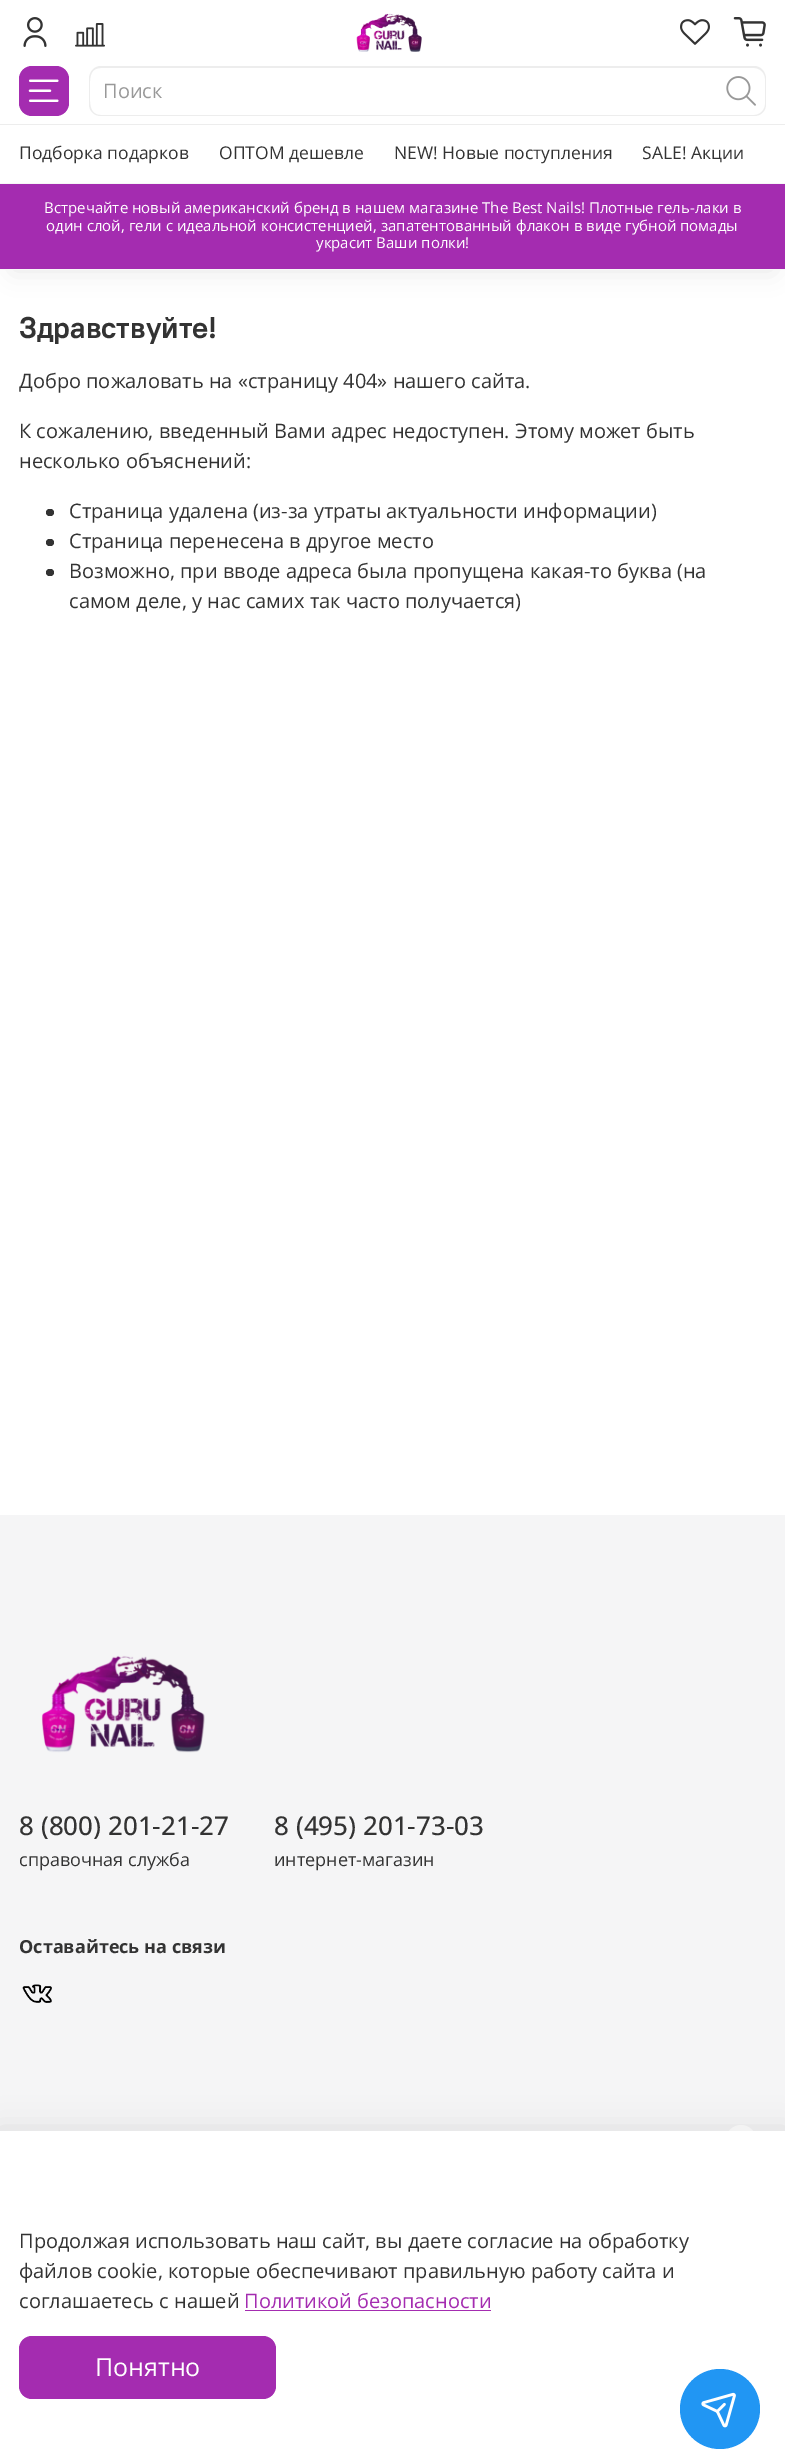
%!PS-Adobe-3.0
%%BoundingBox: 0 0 785 2461
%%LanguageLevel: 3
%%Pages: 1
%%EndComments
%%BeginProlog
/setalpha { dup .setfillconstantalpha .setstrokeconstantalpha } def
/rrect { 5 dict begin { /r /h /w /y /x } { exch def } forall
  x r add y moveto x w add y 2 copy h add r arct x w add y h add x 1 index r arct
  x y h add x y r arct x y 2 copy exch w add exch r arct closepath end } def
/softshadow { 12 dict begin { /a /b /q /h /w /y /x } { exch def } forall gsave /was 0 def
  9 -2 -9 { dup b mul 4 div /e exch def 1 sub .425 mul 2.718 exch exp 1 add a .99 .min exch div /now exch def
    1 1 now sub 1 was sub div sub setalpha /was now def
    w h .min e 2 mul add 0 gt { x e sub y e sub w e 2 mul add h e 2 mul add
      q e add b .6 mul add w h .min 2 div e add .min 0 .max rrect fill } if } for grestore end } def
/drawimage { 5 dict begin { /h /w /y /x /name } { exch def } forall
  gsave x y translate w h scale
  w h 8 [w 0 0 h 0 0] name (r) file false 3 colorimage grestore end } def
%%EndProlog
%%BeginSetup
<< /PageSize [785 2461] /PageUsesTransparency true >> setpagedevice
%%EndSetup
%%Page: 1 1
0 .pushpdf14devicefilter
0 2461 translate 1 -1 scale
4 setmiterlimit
1 setgray
0 0 785 2461 rectfill
0.929 setgray
0 124 785 1 rectfill
(images/1.raw) 23 17 24 30 drawimage
(images/2.raw) 75 23 30 24 drawimage
(images/3.raw) 356 13 66 39 drawimage
(images/4.raw) 680 19 30 26 drawimage
(images/5.raw) 733 17 33 30 drawimage
0.643 0.173 0.69 setrgbcolor
19 66 50 50 13 rrect fill
(images/6.raw) 28 79 31 23 drawimage
0.929 setgray
newpath 101 66 moveto 716 66 lineto 716 116 lineto 101 116 lineto 94 116 89 111 89 104 curveto 89 79 lineto 89 72 94 66 101 66 curveto closepath 101 68 moveto 716 68 lineto 716 115 lineto 101 115 lineto 88 115 90 100 90 91 curveto 90 82 88 68 101 68 curveto closepath eofill
newpath 716 66 moveto 754 66 lineto 761 66 766 72 766 79 curveto 766 104 lineto 766 111 761 116 754 116 curveto 716 116 lineto closepath 716 68 moveto 754 68 lineto 760 68 765 73 765 79 curveto 765 104 lineto 765 110 760 115 754 115 curveto 716 115 lineto closepath eofill
(images/7.raw) 726 76 30 30 drawimage
0.969 setgray
0 183 785 1 rectfill
0 setgray
13 209 760 61 0 12.5 0.1 softshadow
0.969 setgray
0 269 785 1 rectfill
0.643 0.173 0.69 setrgbcolor
0 184 785 85 rectfill
0.2 setgray
46 509 8 7 3.5 rrect fill
46 539 8 7 3.5 rrect fill
46 569 8 7 3.5 rrect fill
0.961 0.961 0.965 setrgbcolor
0 1515 785 616 rectfill
(images/8.raw) 41 1655 164 98 drawimage
(images/9.raw) 22 1984 30 19 drawimage
1 setgray
newpath 741 2140 15 0 360 arc closepath fill
0 setgray
-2 2128 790 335 0 14.5 0.09 softshadow
1 setgray
0 2131 785 330 rectfill
0.643 0.173 0.69 setrgbcolor
245 2310 246 1 rectfill
19 2336 257 63 13 rrect fill
0.129 0.588 0.953 setrgbcolor
newpath 720 2409 40 0 360 arc closepath fill
(images/10.raw) 701 2392 35 36 drawimage
/OpenSans-Regular [20 0 0 -20 0 0] selectfont
0.6 setgray
103 98 moveto (Поиск) show
/OpenSans-Regular [17.5 0 0 -17.5 0 0] selectfont
0.2 setgray
19 159 moveto (Подборка подарков) show
219 159 moveto (ОПТОМ дешевле) show
394 159 moveto (NEW! Новые поступления) show
642 159 moveto (SALE! Акции) show
/OpenSans-Regular [15 0 0 -15 0 0] selectfont
1 setgray
44 213 moveto (Встречайте новый американский бренд в нашем магазине The Best Nails! Плотные гель-лаки в) show
46 231 moveto (один слой, гели с идеальной консистенцией, запатентованный флакон в виде губной помады) show
316 248 moveto (украсит Ваши полки!) show
/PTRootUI-Bold [30 0 0 -30 0 0] selectfont
0.2 setgray
19 338 moveto (Здравствуйте!) show
/OpenSans-Regular [20 0 0 -20 0 0] selectfont
19 388 moveto (Добро пожаловать на «страницу 404» нашего сайта.) show
19 438 moveto (К сожалению, введенный Вами адрес недоступен. Этому может быть) show
19 468 moveto (несколько объяснений:) show
69 518 moveto (Страница удалена \(из-за утраты актуальности информации\)) show
69 548 moveto (Страница перенесена в другое место) show
69 578 moveto (Возможно, при вводе адреса была пропущена какая-то буква \(на) show
69 608 moveto (самом деле, у нас самих так часто получается\)) show
/OpenSans-Medium [26 0 0 -26 0 0] selectfont
19 1835 moveto (8 \(800\) 201-21-27) show
/OpenSans-Regular [18 0 0 -18 0 0] selectfont
19 1866 moveto (справочная служба) show
/OpenSans-Medium [26 0 0 -26 0 0] selectfont
274 1835 moveto (8 \(495\) 201-73-03) show
/OpenSans-Regular [18 0 0 -18 0 0] selectfont
274 1866 moveto (интернет-магазин) show
/OpenSans-Bold [18 0 0 -18 0 0] selectfont
19 1953 moveto (Оставайтесь на связи) show
/OpenSans-Regular [20 0 0 -20 0 0] selectfont
19 2248 moveto (Продолжая использовать наш сайт, вы даете согласие на обработку) show
19 2278 moveto (файлов cookie, которые обеспечивают правильную работу сайта и) show
19 2308 moveto (соглашаетесь с нашей) show
0.643 0.173 0.69 setrgbcolor
244 2308 moveto (Политикой безопасности) show
/OpenSans-Regular [25 0 0 -25 0 0] selectfont
1 setgray
95 2376 moveto (Понятно) show
.poppdf14devicefilter showpage
%%EOF
